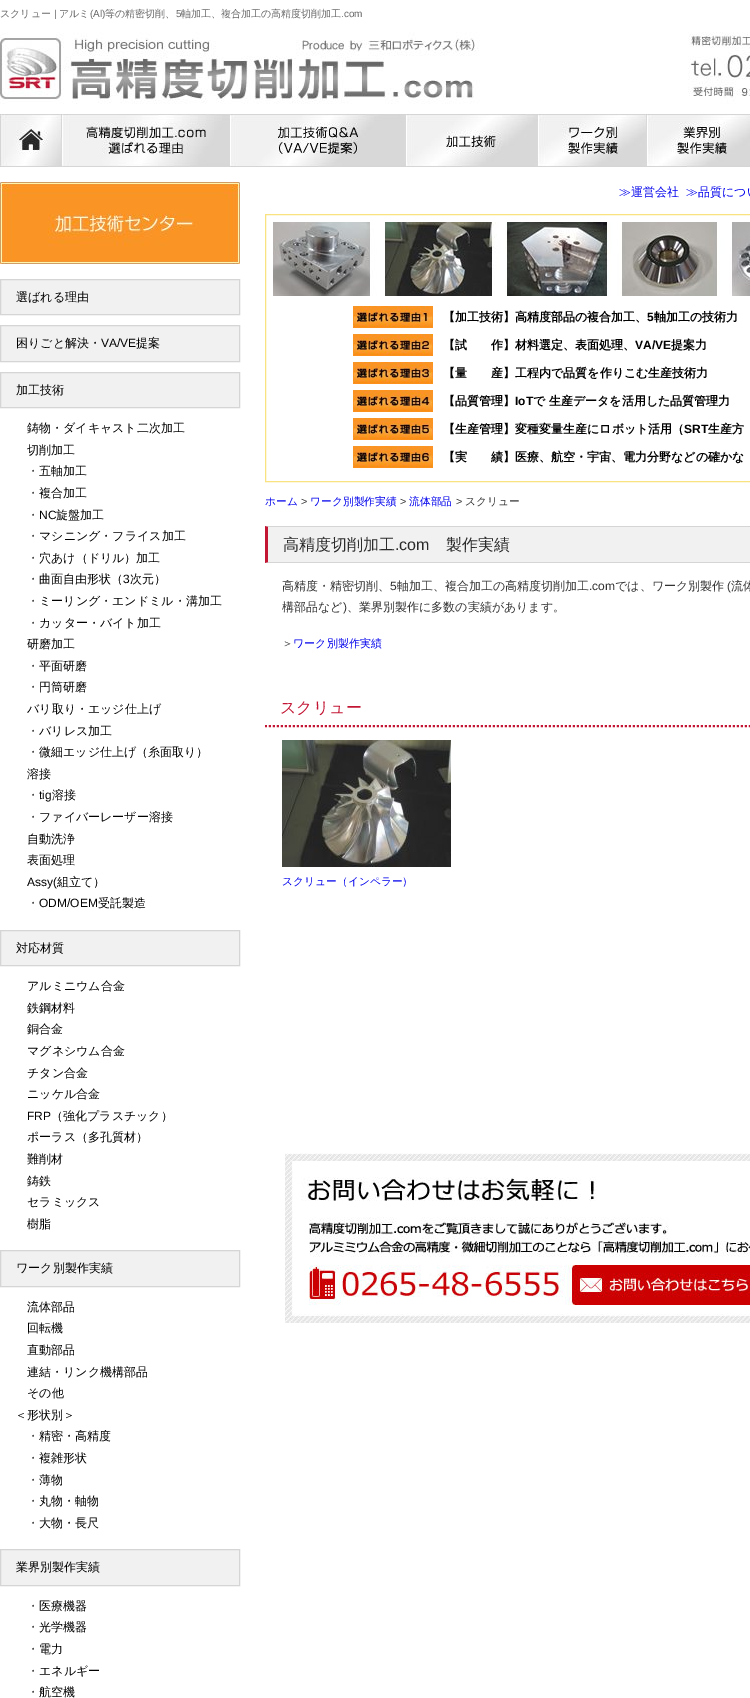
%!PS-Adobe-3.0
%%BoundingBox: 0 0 750 1698
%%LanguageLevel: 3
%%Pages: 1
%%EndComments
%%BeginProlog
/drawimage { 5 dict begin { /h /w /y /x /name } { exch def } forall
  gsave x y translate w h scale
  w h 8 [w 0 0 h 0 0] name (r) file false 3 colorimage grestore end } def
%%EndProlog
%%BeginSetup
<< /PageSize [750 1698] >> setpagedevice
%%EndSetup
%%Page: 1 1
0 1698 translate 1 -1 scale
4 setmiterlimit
1 setgray
0 0 750 1698 rectfill
(images/1.raw) 0 32 750 72 drawimage
(images/2.raw) 0 114 62 53 drawimage
(images/3.raw) 62 114 168 53 drawimage
(images/4.raw) 230 114 176 53 drawimage
(images/5.raw) 406 114 132 53 drawimage
(images/6.raw) 538 114 109 53 drawimage
(images/7.raw) 647 114 103 53 drawimage
(images/8.raw) 0 182 240 82 drawimage
0.945 setgray
newpath 0.5 279.5 moveto 239.5 279.5 lineto 239.5 314.5 lineto 0.5 314.5 lineto closepath gsave fill grestore
0.835 setgray
stroke
0.945 setgray
newpath 0.5 325.5 moveto 239.5 325.5 lineto 239.5 361.5 lineto 0.5 361.5 lineto closepath gsave fill grestore
0.835 setgray
stroke
0.945 setgray
newpath 0.5 372.5 moveto 239.5 372.5 lineto 239.5 407.5 lineto 0.5 407.5 lineto closepath gsave fill grestore
0.835 setgray
stroke
0.945 setgray
newpath 0.5 930.5 moveto 239.5 930.5 lineto 239.5 965.5 lineto 0.5 965.5 lineto closepath gsave fill grestore
0.835 setgray
stroke
0.945 setgray
newpath 0.5 1250.5 moveto 239.5 1250.5 lineto 239.5 1286.5 lineto 0.5 1286.5 lineto closepath gsave fill grestore
0.835 setgray
stroke
0.945 setgray
newpath 0.5 1549.5 moveto 239.5 1549.5 lineto 239.5 1585.5 lineto 0.5 1585.5 lineto closepath gsave fill grestore
0.835 setgray
stroke
0.976 0.89 0.502 setrgbcolor
265.5 214.5 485 267 rectstroke
(images/9.raw) 273 222 477 74 drawimage
(images/10.raw) 353 306 80 22 drawimage
(images/11.raw) 353 334 80 22 drawimage
(images/12.raw) 353 362 80 22 drawimage
(images/13.raw) 353 390 80 22 drawimage
(images/14.raw) 353 418 80 22 drawimage
(images/15.raw) 353 446 80 22 drawimage
0.945 setgray
268 527 482 35 rectfill
0.835 setgray
newpath 265 526 moveto 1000 526 lineto 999 527 lineto 268 527 lineto closepath fill
newpath 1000 563 moveto 265 563 lineto 268 562 lineto 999 562 lineto closepath fill
0.765 0.086 0.204 setrgbcolor
newpath 265 563 moveto 265 526 lineto 268 527 lineto 268 562 lineto closepath fill
2 setlinewidth
[2 2] 0 setdash
newpath 265 726 moveto 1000 726 lineto stroke
(images/16.raw) 282 740 169 127 drawimage
(images/17.raw) 285 1153 465 170 drawimage
/WenQuanYiZenHei-Medium [10 0 0 -10 0 0] selectfont
0.4 setgray
0 17 moveto (スクリュー) show
/LiberationSans-Regular [10 0 0 -10 0 0] selectfont
54 17 moveto (|) show
/WenQuanYiZenHei-Medium [10 0 0 -10 0 0] selectfont
59 17 moveto (アルミ) show
/LiberationSans-Regular [10 0 0 -10 0 0] selectfont
90 17 moveto (\(Al\)) show
/WenQuanYiZenHei-Medium [10 0 0 -10 0 0] selectfont
105 17 moveto (等の精密切削、) show
/LiberationSans-Regular [10 0 0 -10 0 0] selectfont
176 17 moveto (5) show
/WenQuanYiZenHei-Medium [10 0 0 -10 0 0] selectfont
181 17 moveto (軸加工、複合加工の高精度切削加工) show
/LiberationSans-Regular [10 0 0 -10 0 0] selectfont
341 17 moveto (.com) show
/WenQuanYiZenHei-Medium [12 0 0 -12 0 0] selectfont
0 setgray
16 301 moveto (選ばれる理由) show
16 347 moveto (困りごと解決・) show
/LiberationSans-Regular [12 0 0 -12 0 0] selectfont
101 347 moveto (VA/VE) show
/WenQuanYiZenHei-Medium [12 0 0 -12 0 0] selectfont
136 347 moveto (提案) show
16 394 moveto (加工技術) show
27 432 moveto (鋳物・ダイキャスト二次加工) show
27 454 moveto (切削加工) show
0.2 setgray
27 475 moveto (・) show
0 setgray
39 475 moveto (五軸加工) show
0.2 setgray
27 497 moveto (・) show
0 setgray
39 497 moveto (複合加工) show
0.2 setgray
27 519 moveto (・) show
/LiberationSans-Regular [12 0 0 -12 0 0] selectfont
0 setgray
39 519 moveto (NC) show
/WenQuanYiZenHei-Medium [12 0 0 -12 0 0] selectfont
56 519 moveto (旋盤加工) show
0.2 setgray
27 540 moveto (・) show
0 setgray
39 540 moveto (マシニング・フライス加工) show
0.2 setgray
27 562 moveto (・) show
0 setgray
39 562 moveto (穴あけ（ドリル）加工) show
0.2 setgray
27 583 moveto (・) show
0 setgray
39 583 moveto (曲面自由形状（) show
/LiberationSans-Regular [12 0 0 -12 0 0] selectfont
123 583 moveto (3) show
/WenQuanYiZenHei-Medium [12 0 0 -12 0 0] selectfont
130 583 moveto (次元）) show
0.2 setgray
27 605 moveto (・) show
0 setgray
39 605 moveto (ミーリング・エンドミル・溝加工) show
0.2 setgray
27 627 moveto (・) show
0 setgray
39 627 moveto (カッター・バイト加工) show
27 648 moveto (研磨加工) show
0.2 setgray
27 670 moveto (・) show
0 setgray
39 670 moveto (平面研磨) show
0.2 setgray
27 691 moveto (・) show
0 setgray
39 691 moveto (円筒研磨) show
27 713 moveto (バリ取り・エッジ仕上げ) show
0.2 setgray
27 735 moveto (・) show
0 setgray
39 735 moveto (バリレス加工) show
0.2 setgray
27 756 moveto (・) show
0 setgray
39 756 moveto (微細エッジ仕上げ（糸面取り）) show
27 778 moveto (溶接) show
0.2 setgray
27 799 moveto (・) show
/LiberationSans-Regular [12 0 0 -12 0 0] selectfont
0 setgray
39 799 moveto (tig) show
/WenQuanYiZenHei-Medium [12 0 0 -12 0 0] selectfont
52 799 moveto (溶接) show
0.2 setgray
27 821 moveto (・) show
0 setgray
39 821 moveto (ファイバーレーザー溶接) show
27 843 moveto (自動洗浄) show
27 864 moveto (表面処理) show
/LiberationSans-Regular [12 0 0 -12 0 0] selectfont
27 886 moveto (Assy\() show
/WenQuanYiZenHei-Medium [12 0 0 -12 0 0] selectfont
57 886 moveto (組立て）) show
0.2 setgray
27 907 moveto (・) show
/LiberationSans-Regular [12 0 0 -12 0 0] selectfont
0 setgray
39 907 moveto (ODM/OEM) show
/WenQuanYiZenHei-Medium [12 0 0 -12 0 0] selectfont
98 907 moveto (受託製造) show
16 952 moveto (対応材質) show
27 990 moveto (アルミニウム合金) show
27 1012 moveto (鉄鋼材料) show
27 1033 moveto (銅合金) show
27 1055 moveto (マグネシウム合金) show
27 1077 moveto (チタン合金) show
27 1098 moveto (ニッケル合金) show
/LiberationSans-Regular [12 0 0 -12 0 0] selectfont
27 1120 moveto (FRP) show
/WenQuanYiZenHei-Medium [12 0 0 -12 0 0] selectfont
51 1120 moveto (（強化プラスチック）) show
27 1141 moveto (ポーラス（多孔質材）) show
27 1163 moveto (難削材) show
27 1185 moveto (鋳鉄) show
27 1206 moveto (セラミックス) show
27 1228 moveto (樹脂) show
16 1272 moveto (ワーク別製作実績) show
27 1311 moveto (流体部品) show
27 1332 moveto (回転機) show
27 1354 moveto (直動部品) show
27 1376 moveto (連結・リンク機構部品) show
27 1397 moveto (その他) show
15 1419 moveto (＜形状別＞) show
0.2 setgray
27 1440 moveto (・) show
0 setgray
39 1440 moveto (精密・高精度) show
0.2 setgray
27 1462 moveto (・) show
0 setgray
39 1462 moveto (複雑形状) show
0.2 setgray
27 1484 moveto (・) show
0 setgray
39 1484 moveto (薄物) show
0.2 setgray
27 1505 moveto (・) show
0 setgray
39 1505 moveto (丸物・軸物) show
0.2 setgray
27 1527 moveto (・) show
0 setgray
39 1527 moveto (大物・長尺) show
16 1571 moveto (業界別製作実績) show
0.2 setgray
27 1610 moveto (・) show
0 setgray
39 1610 moveto (医療機器) show
0.2 setgray
27 1631 moveto (・) show
0 setgray
39 1631 moveto (光学機器) show
0.2 setgray
27 1653 moveto (・) show
0 setgray
39 1653 moveto (電力) show
0.2 setgray
27 1675 moveto (・) show
0 setgray
39 1675 moveto (エネルギー) show
0.2 setgray
27 1696 moveto (・) show
0 setgray
39 1696 moveto (航空機) show
0 0 0.933 setrgbcolor
619 196 moveto (≫運営会社) show
686 196 moveto (≫品質につい) show
/WenQuanYiZenHei-Bold [12 0 0 -12 0 0] selectfont
0 setgray
443 321 moveto (【加工技術】高精度部品の複合加工、) show
/LiberationSans-Bold [12 0 0 -12 0 0] selectfont
647 321 moveto (5) show
/WenQuanYiZenHei-Bold [12 0 0 -12 0 0] selectfont
654 321 moveto (軸加工の技術力) show
443 349 moveto (【試　　作】材料選定、表面処理、) show
/LiberationSans-Bold [12 0 0 -12 0 0] selectfont
635 349 moveto (VA/VE) show
/WenQuanYiZenHei-Bold [12 0 0 -12 0 0] selectfont
671 349 moveto (提案力) show
443 377 moveto (【量　　産】工程内で品質を作りこむ生産技術力) show
443 405 moveto (【品質管理】) show
/LiberationSans-Bold [12 0 0 -12 0 0] selectfont
515 405 moveto (IoT) show
/WenQuanYiZenHei-Bold [12 0 0 -12 0 0] selectfont
533 405 moveto (で 生産データを活用した品質管理力) show
443 433 moveto (【生産管理】変種変量生産にロボット活用（) show
/LiberationSans-Bold [12 0 0 -12 0 0] selectfont
684 433 moveto (SRT) show
/WenQuanYiZenHei-Bold [12 0 0 -12 0 0] selectfont
708 433 moveto (生産方) show
443 461 moveto (【実　　績】医療、航空・宇宙、電力分野などの確かな) show
/WenQuanYiZenHei-Medium [10.75 0 0 -10.75 0 0] selectfont
0 0 0.933 setrgbcolor
265 505 moveto (ホーム) show
/LiberationSans-Regular [10.75 0 0 -10.75 0 0] selectfont
0.2 setgray
301 505 moveto (>) show
/WenQuanYiZenHei-Medium [10.75 0 0 -10.75 0 0] selectfont
0 0 0.933 setrgbcolor
310 505 moveto (ワーク別製作実績) show
/LiberationSans-Regular [10.75 0 0 -10.75 0 0] selectfont
0.2 setgray
400 505 moveto (>) show
/WenQuanYiZenHei-Medium [10.75 0 0 -10.75 0 0] selectfont
0 0 0.933 setrgbcolor
409 505 moveto (流体部品) show
/LiberationSans-Regular [10.75 0 0 -10.75 0 0] selectfont
0.2 setgray
456 505 moveto (>) show
/WenQuanYiZenHei-Medium [10.75 0 0 -10.75 0 0] selectfont
465 505 moveto (スクリュー) show
/WenQuanYiZenHei-Medium [16 0 0 -16 0 0] selectfont
0.165 setgray
283 550 moveto (高精度切削加工) show
/LiberationSans-Regular [16 0 0 -16 0 0] selectfont
395 550 moveto (.com) show
/WenQuanYiZenHei-Medium [16 0 0 -16 0 0] selectfont
446 550 moveto (製作実績) show
/WenQuanYiZenHei-Medium [12 0 0 -12 0 0] selectfont
0.2 setgray
282 590 moveto (高精度・精密切削、) show
/LiberationSans-Regular [12 0 0 -12 0 0] selectfont
390 590 moveto (5) show
/WenQuanYiZenHei-Medium [12 0 0 -12 0 0] selectfont
397 590 moveto (軸加工、複合加工の高精度切削加工) show
/LiberationSans-Regular [12 0 0 -12 0 0] selectfont
589 590 moveto (.com) show
/WenQuanYiZenHei-Medium [12 0 0 -12 0 0] selectfont
615 590 moveto (では、ワーク別製作) show
/LiberationSans-Regular [12 0 0 -12 0 0] selectfont
727 590 moveto (\() show
/WenQuanYiZenHei-Medium [12 0 0 -12 0 0] selectfont
731 590 moveto (流体) show
282 611 moveto (構部品など) show
/LiberationSans-Regular [12 0 0 -12 0 0] selectfont
343 611 moveto (\)) show
/WenQuanYiZenHei-Medium [12 0 0 -12 0 0] selectfont
347 611 moveto (、業界別製作に多数の実績があります。) show
/WenQuanYiZenHei-Medium [11 0 0 -11 0 0] selectfont
282 647 moveto (＞) show
0 0 0.933 setrgbcolor
293 647 moveto (ワーク別製作実績) show
/WenQuanYiZenHei-Medium [16 0 0 -16 0 0] selectfont
0.765 0.086 0.204 setrgbcolor
280 713 moveto (スクリュー) show
/WenQuanYiZenHei-Medium [10.75 0 0 -10.75 0 0] selectfont
0 0 0.933 setrgbcolor
282 885 moveto (スクリュー（インペラー）) show
showpage
%%EOF
